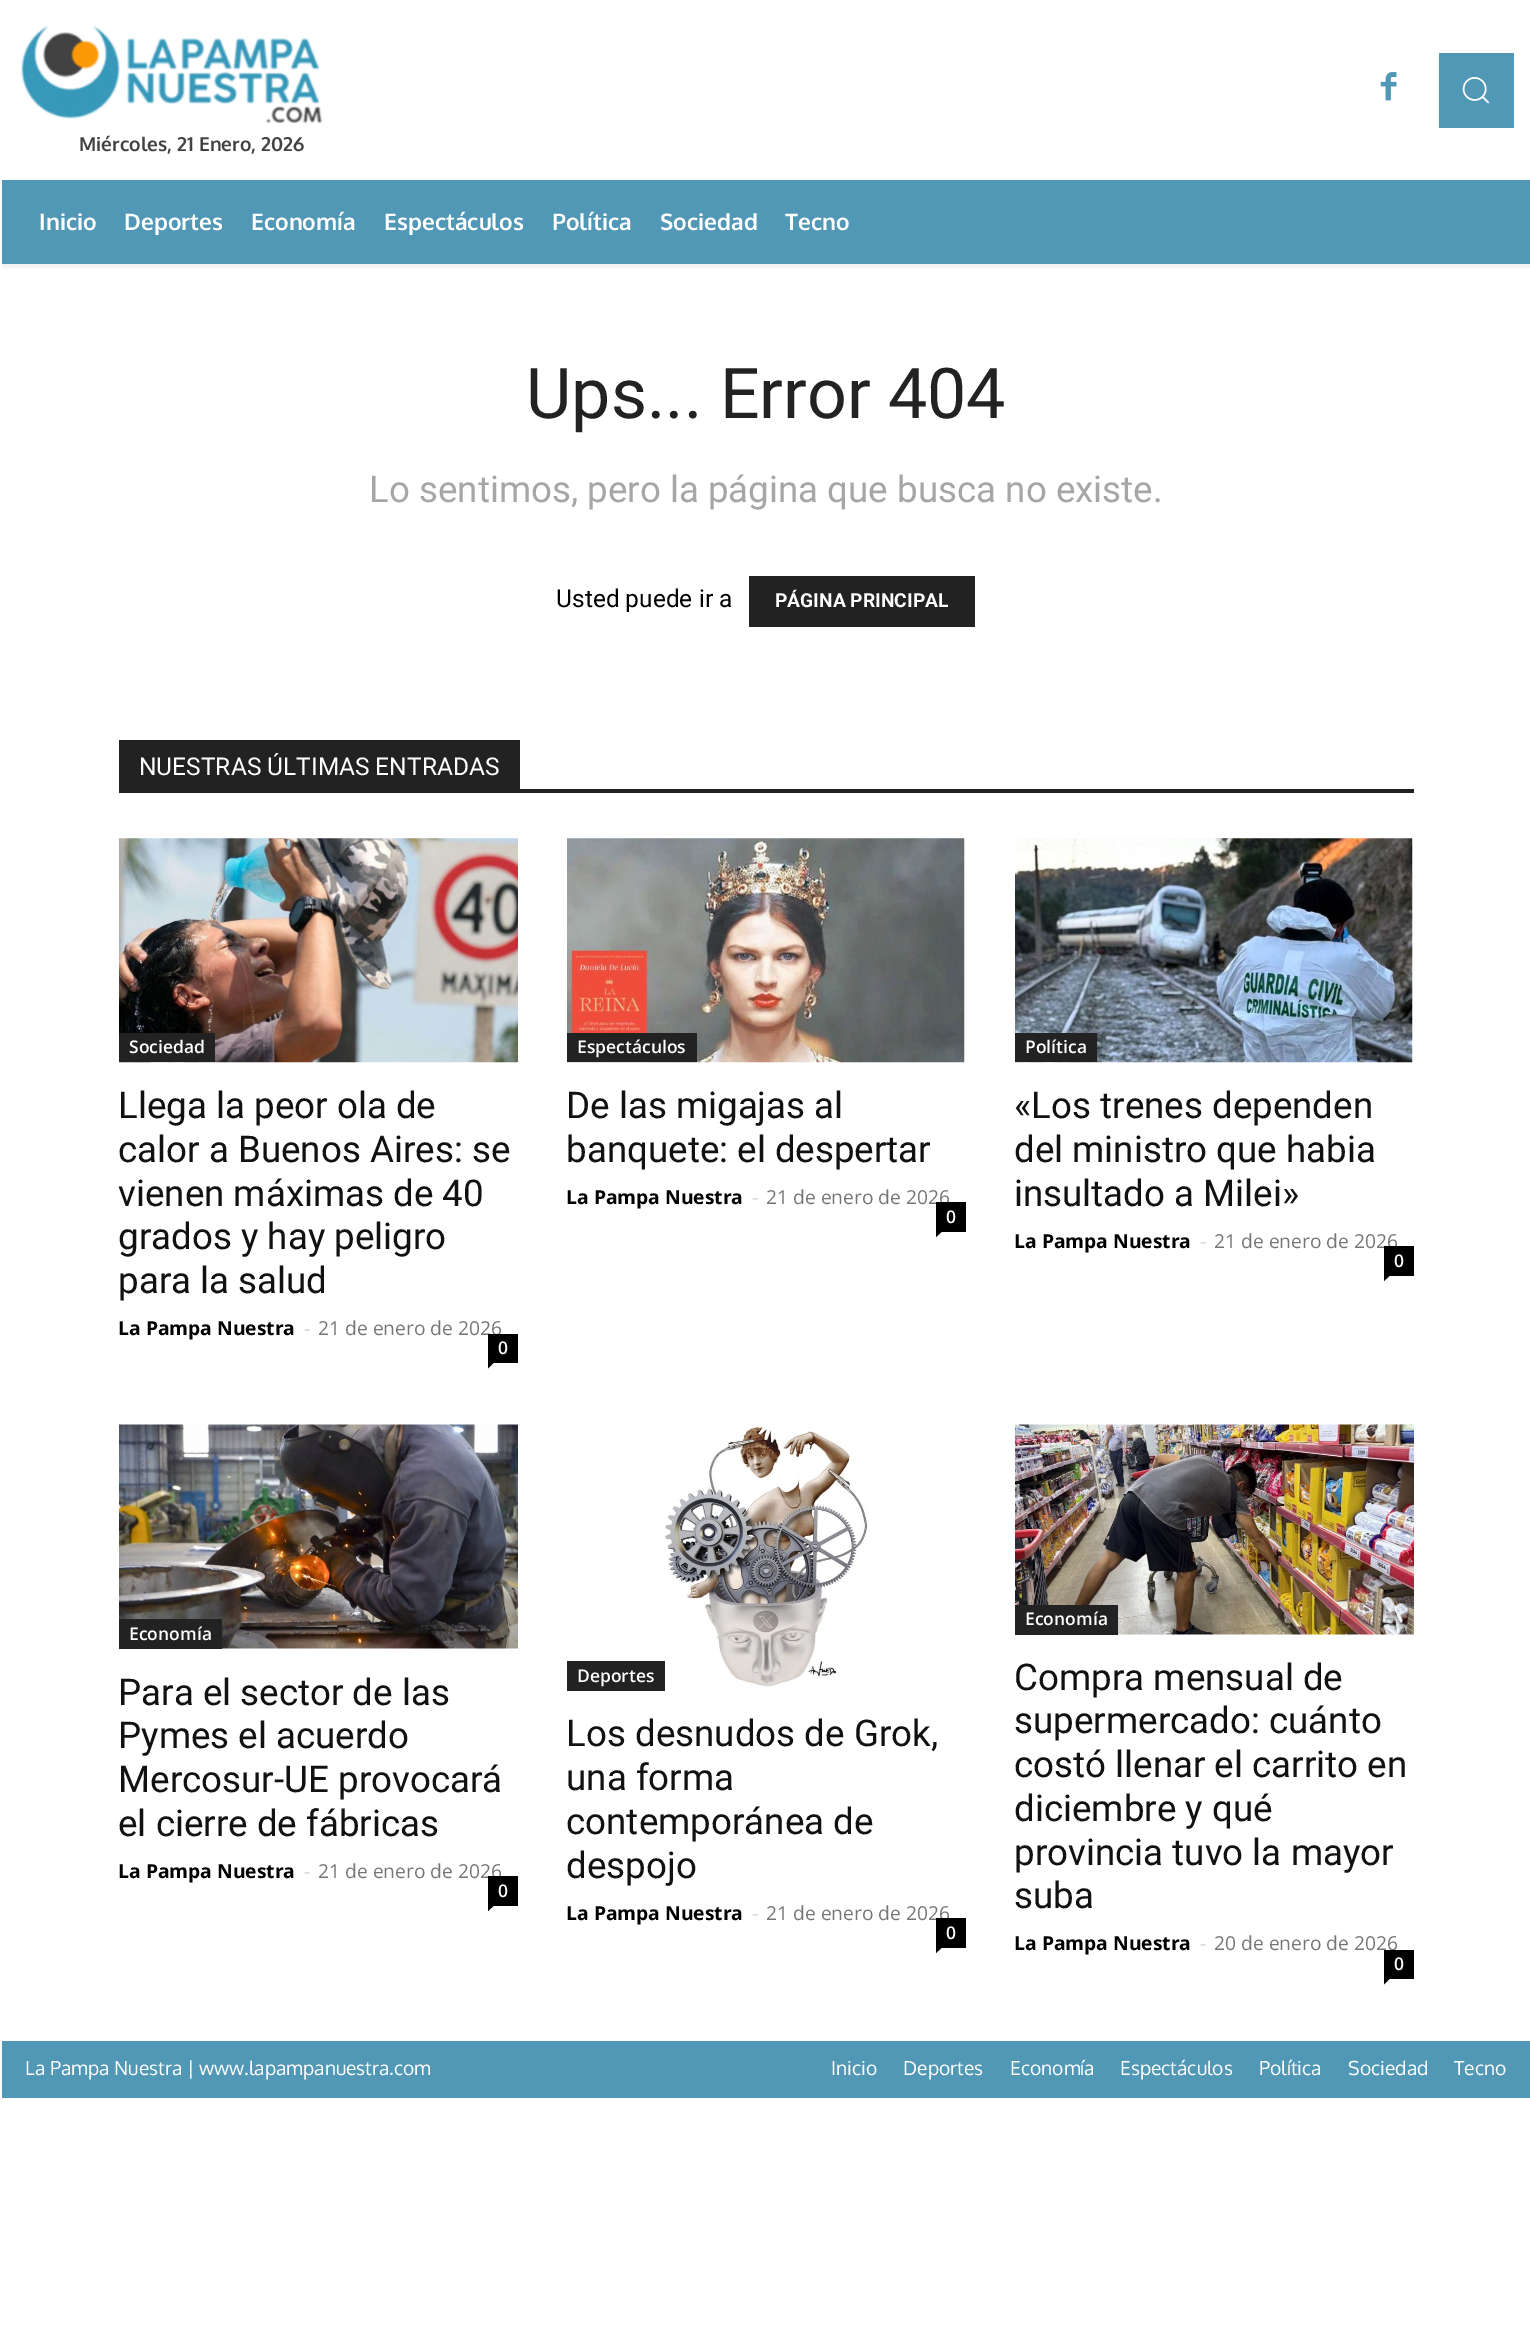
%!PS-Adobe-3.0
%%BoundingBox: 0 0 1530 2351
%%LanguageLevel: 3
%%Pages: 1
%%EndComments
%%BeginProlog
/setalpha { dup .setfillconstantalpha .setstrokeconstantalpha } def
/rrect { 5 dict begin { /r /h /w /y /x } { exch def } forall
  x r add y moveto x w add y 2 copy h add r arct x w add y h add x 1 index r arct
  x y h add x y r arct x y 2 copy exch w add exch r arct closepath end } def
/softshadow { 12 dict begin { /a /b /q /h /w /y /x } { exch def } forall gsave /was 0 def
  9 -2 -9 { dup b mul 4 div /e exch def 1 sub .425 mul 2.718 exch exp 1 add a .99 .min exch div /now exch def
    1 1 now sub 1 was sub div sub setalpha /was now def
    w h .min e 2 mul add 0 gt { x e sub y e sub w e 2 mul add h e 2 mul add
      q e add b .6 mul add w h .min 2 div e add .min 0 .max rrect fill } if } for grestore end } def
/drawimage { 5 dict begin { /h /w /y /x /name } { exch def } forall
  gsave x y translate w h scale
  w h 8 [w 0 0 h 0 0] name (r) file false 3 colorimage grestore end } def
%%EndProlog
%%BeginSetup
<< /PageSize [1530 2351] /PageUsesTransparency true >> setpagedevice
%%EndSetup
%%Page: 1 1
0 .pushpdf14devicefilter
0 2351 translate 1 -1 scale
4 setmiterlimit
1 setgray
0 0 1530 2351 rectfill
(images/1.raw) 1380 72 17 29 drawimage
0.318 0.596 0.714 setrgbcolor
1439 53 75 75 rectfill
(images/2.raw) 1462 77 27 27 drawimage
(images/3.raw) 21 25 302 99 drawimage
2 180 1528 84 rectfill
gsave
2 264 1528 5 rectclip
0 setgray
2 184 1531 84 0 2.5 0.05 softshadow
grestore
0.133 setgray
749 576 226 51 rectfill
119 789 1295 4 rectfill
119 740 401 49 rectfill
(images/4.raw) 119 838 399 225 drawimage
119 1033 96 29 rectfill
0 setgray
newpath 488 1363 moveto 493.5 1363 lineto 488 1368.5 lineto closepath fill
(images/5.raw) 567 838 398 225 drawimage
0.133 setgray
567 1033 130 29 rectfill
0 setgray
newpath 936 1232 moveto 941.5 1232 lineto 936 1237 lineto closepath fill
(images/6.raw) 1015 838 398 225 drawimage
0.133 setgray
1015 1033 82 29 rectfill
0 setgray
newpath 1384 1276 moveto 1389.5 1276 lineto 1384 1281 lineto closepath fill
(images/7.raw) 119 1424 399 225 drawimage
0.133 setgray
119 1619 103 30 rectfill
0 setgray
newpath 488 1906 moveto 493.5 1906 lineto 488 1911 lineto closepath fill
(images/8.raw) 663 1424 205 263 drawimage
0.133 setgray
567 1661 98 30 rectfill
0 setgray
newpath 936 1948 moveto 941.5 1948 lineto 936 1953 lineto closepath fill
(images/9.raw) 1015 1424 399 211 drawimage
0.133 setgray
1015 1605 103 30 rectfill
0 setgray
newpath 1384 1979 moveto 1389.5 1979 lineto 1384 1984.5 lineto closepath fill
0.318 0.596 0.714 setrgbcolor
2 2041 1528 57 rectfill
/Oxygen-Bold [19.25 0 0 -19.25 0 0] selectfont
0.259 setgray
79 151 moveto (Miércoles, 21 Enero, 2026) show
/Oxygen-Bold [22.75 0 0 -22.75 0 0] selectfont
1 setgray
39 230 moveto (Inicio) show
124 230 moveto (Deportes) show
251 230 moveto (Economía) show
384 230 moveto (Espectáculos) show
552 230 moveto (Política) show
660 230 moveto (Sociedad) show
785 230 moveto (Tecno) show
/Roboto-Regular [70 0 0 -70 0 0] selectfont
0.133 setgray
526 418 moveto (Ups... Error 404) show
/Roboto-Regular [36.75 0 0 -36.75 0 0] selectfont
0.651 setgray
369 502 moveto (Lo sentimos, pero la página que busca no existe.) show
/Roboto-Regular [24.5 0 0 -24.5 0 0] selectfont
0 setgray
556 607 moveto (Usted puede ir a) show
/Roboto-Bold [19.25 0 0 -19.25 0 0] selectfont
1 setgray
775 607 moveto (PÁGINA PRINCIPAL) show
/Roboto-Regular [24.5 0 0 -24.5 0 0] selectfont
139 775 moveto (NUESTRAS ÚLTIMAS ENTRADAS) show
/OpenSans-SemiBold [17.5 0 0 -17.5 0 0] selectfont
129 1053 moveto (Sociedad) show
/Roboto-Regular [36.75 0 0 -36.75 0 0] selectfont
0.067 setgray
118 1118 moveto (Llega la peor ola de) show
118 1162 moveto (calor a Buenos Aires: se) show
118 1206 moveto (vienen máximas de 40) show
118 1249 moveto (grados y hay peligro) show
118 1293 moveto (para la salud) show
/OpenSans-Bold [19.25 0 0 -19.25 0 0] selectfont
0 setgray
118 1335 moveto (La Pampa Nuestra) show
/OpenSans-Regular [19.25 0 0 -19.25 0 0] selectfont
0.8 setgray
304 1335 moveto (-) show
0.463 setgray
318 1335 moveto (21 de enero de 2026) show
0 setgray
488 1334 30 29 rectfill
/OpenSans-SemiBold [17.5 0 0 -17.5 0 0] selectfont
1 setgray
498 1354 moveto (0) show
577 1053 moveto (Espectáculos) show
/Roboto-Regular [36.75 0 0 -36.75 0 0] selectfont
0.067 setgray
566 1118 moveto (De las migajas al) show
566 1162 moveto (banquete: el despertar) show
/OpenSans-Bold [19.25 0 0 -19.25 0 0] selectfont
0 setgray
566 1204 moveto (La Pampa Nuestra) show
/OpenSans-Regular [19.25 0 0 -19.25 0 0] selectfont
0.8 setgray
752 1204 moveto (-) show
0.463 setgray
766 1204 moveto (21 de enero de 2026) show
0 setgray
936 1202 30 30 rectfill
/OpenSans-SemiBold [17.5 0 0 -17.5 0 0] selectfont
1 setgray
946 1223 moveto (0) show
1025 1053 moveto (Política) show
/Roboto-Regular [36.75 0 0 -36.75 0 0] selectfont
0.067 setgray
1014 1118 moveto («Los trenes dependen) show
1014 1162 moveto (del ministro que habia) show
1014 1206 moveto (insultado a Milei») show
/OpenSans-Bold [19.25 0 0 -19.25 0 0] selectfont
0 setgray
1014 1248 moveto (La Pampa Nuestra) show
/OpenSans-Regular [19.25 0 0 -19.25 0 0] selectfont
0.8 setgray
1200 1248 moveto (-) show
0.463 setgray
1214 1248 moveto (21 de enero de 2026) show
0 setgray
1384 1246 30 30 rectfill
/OpenSans-SemiBold [17.5 0 0 -17.5 0 0] selectfont
1 setgray
1394 1267 moveto (0) show
129 1640 moveto (Economía) show
/Roboto-Regular [36.75 0 0 -36.75 0 0] selectfont
0.067 setgray
118 1705 moveto (Para el sector de las) show
118 1748 moveto (Pymes el acuerdo) show
118 1792 moveto (Mercosur-UE provocará) show
118 1836 moveto (el cierre de fábricas) show
/OpenSans-Bold [19.25 0 0 -19.25 0 0] selectfont
0 setgray
118 1878 moveto (La Pampa Nuestra) show
/OpenSans-Regular [19.25 0 0 -19.25 0 0] selectfont
0.8 setgray
304 1878 moveto (-) show
0.463 setgray
318 1878 moveto (21 de enero de 2026) show
0 setgray
488 1876 30 30 rectfill
/OpenSans-SemiBold [17.5 0 0 -17.5 0 0] selectfont
1 setgray
498 1897 moveto (0) show
577 1682 moveto (Deportes) show
/Roboto-Regular [36.75 0 0 -36.75 0 0] selectfont
0.067 setgray
566 1746 moveto (Los desnudos de Grok,) show
566 1790 moveto (una forma) show
566 1834 moveto (contemporánea de) show
566 1878 moveto (despojo) show
/OpenSans-Bold [19.25 0 0 -19.25 0 0] selectfont
0 setgray
566 1920 moveto (La Pampa Nuestra) show
/OpenSans-Regular [19.25 0 0 -19.25 0 0] selectfont
0.8 setgray
752 1920 moveto (-) show
0.463 setgray
766 1920 moveto (21 de enero de 2026) show
0 setgray
936 1918 30 30 rectfill
/OpenSans-SemiBold [17.5 0 0 -17.5 0 0] selectfont
1 setgray
946 1939 moveto (0) show
1025 1625 moveto (Economía) show
/Roboto-Regular [36.75 0 0 -36.75 0 0] selectfont
0.067 setgray
1014 1690 moveto (Compra mensual de) show
1014 1733 moveto (supermercado: cuánto) show
1014 1777 moveto (costó llenar el carrito en) show
1014 1821 moveto (diciembre y qué) show
1014 1865 moveto (provincia tuvo la mayor) show
1014 1908 moveto (suba) show
/OpenSans-Bold [19.25 0 0 -19.25 0 0] selectfont
0 setgray
1014 1950 moveto (La Pampa Nuestra) show
/OpenSans-Regular [19.25 0 0 -19.25 0 0] selectfont
0.8 setgray
1200 1950 moveto (-) show
0.463 setgray
1214 1950 moveto (20 de enero de 2026) show
0 setgray
1384 1950 30 29 rectfill
/OpenSans-SemiBold [17.5 0 0 -17.5 0 0] selectfont
1 setgray
1394 1970 moveto (0) show
/Oxygen-Regular [19.25 0 0 -19.25 0 0] selectfont
25 2075 moveto (La Pampa Nuestra | www.lapampanuestra.com) show
831 2075 moveto (Inicio) show
903 2075 moveto (Deportes) show
1010 2075 moveto (Economía) show
1120 2075 moveto (Espectáculos) show
1259 2075 moveto (Política) show
1348 2075 moveto (Sociedad) show
1454 2075 moveto (Tecno) show
.poppdf14devicefilter showpage
%%EOF
